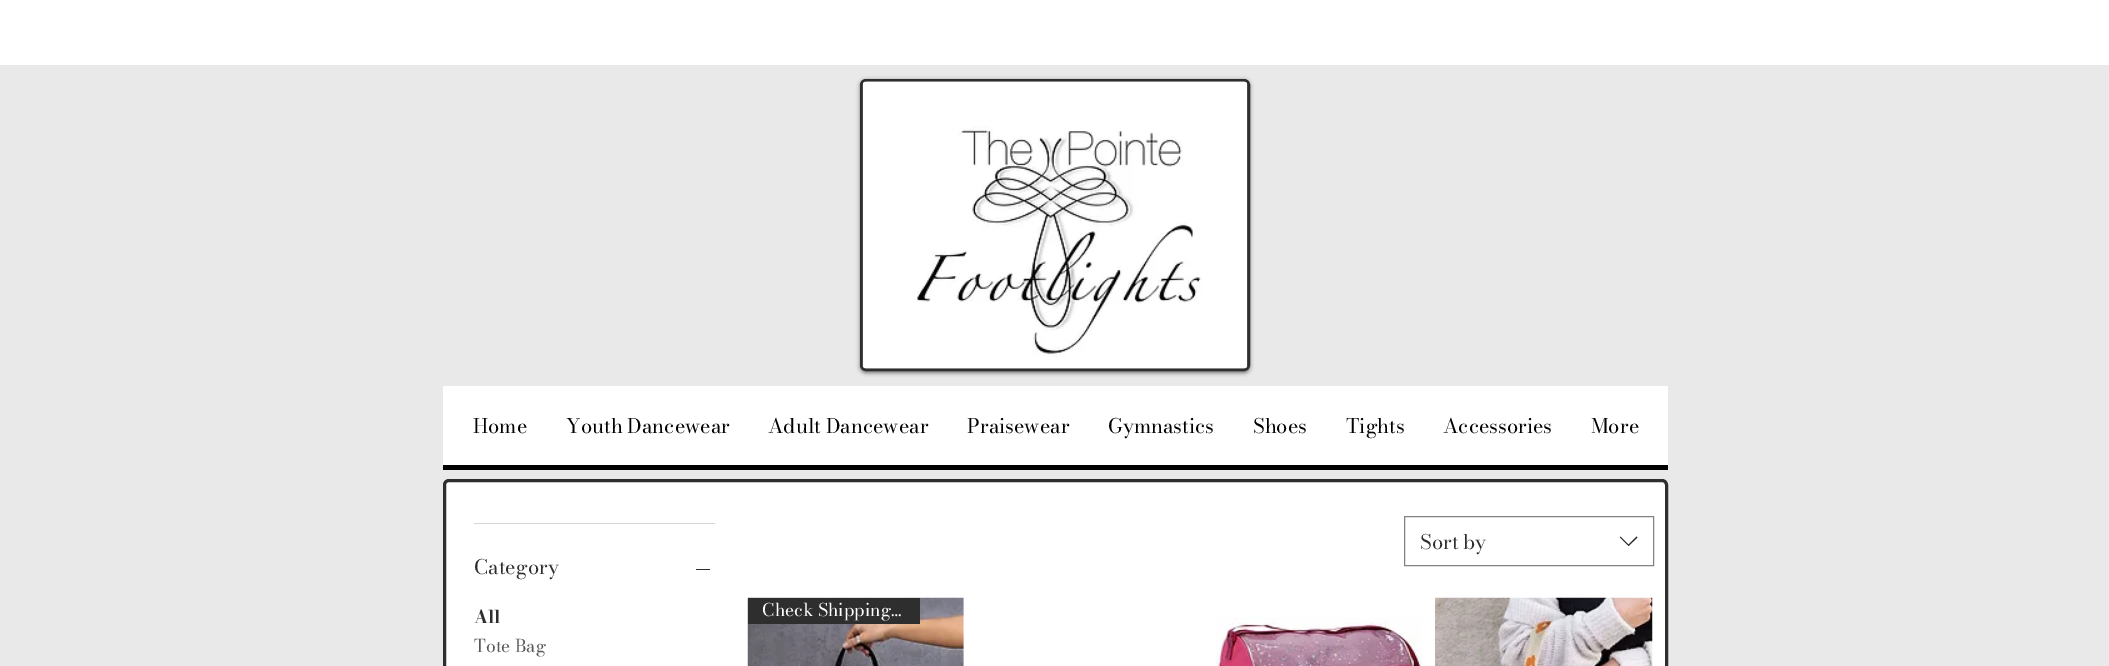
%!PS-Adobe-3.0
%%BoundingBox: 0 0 2109 666
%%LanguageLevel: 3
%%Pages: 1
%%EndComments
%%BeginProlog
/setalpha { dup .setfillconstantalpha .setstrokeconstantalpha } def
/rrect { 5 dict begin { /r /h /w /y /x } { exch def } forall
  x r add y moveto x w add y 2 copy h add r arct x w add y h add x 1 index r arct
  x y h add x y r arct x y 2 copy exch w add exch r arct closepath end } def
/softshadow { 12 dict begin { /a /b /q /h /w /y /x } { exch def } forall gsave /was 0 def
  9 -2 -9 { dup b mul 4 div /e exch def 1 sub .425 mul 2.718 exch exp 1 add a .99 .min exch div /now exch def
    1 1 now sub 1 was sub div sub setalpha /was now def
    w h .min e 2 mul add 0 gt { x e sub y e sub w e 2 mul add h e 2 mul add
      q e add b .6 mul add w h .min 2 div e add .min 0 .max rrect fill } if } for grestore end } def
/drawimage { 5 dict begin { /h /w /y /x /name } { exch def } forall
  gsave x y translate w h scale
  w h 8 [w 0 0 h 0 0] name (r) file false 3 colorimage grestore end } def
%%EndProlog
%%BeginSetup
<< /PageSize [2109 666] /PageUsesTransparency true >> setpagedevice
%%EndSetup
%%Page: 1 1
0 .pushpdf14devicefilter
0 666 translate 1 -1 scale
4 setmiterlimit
0.918 0.914 0.914 setrgbcolor
0 0 2109 666 rectfill
1 setgray
0 0 2109 65 rectfill
0 setgray
860 80 390 293 6 2 0.5 softshadow
0.184 0.18 0.18 setrgbcolor
3 setlinewidth
861.5 80.5 387 289 4.5 rrect stroke
(images/1.raw) 862 81 386 288 drawimage
0 setgray
newpath 443 465 moveto 443 470 lineto 1668 470 lineto 1668 391 lineto 1668 465 lineto closepath fill
1 setgray
443 386 1225 79 rectfill
444.5 480.5 1222 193 4.5 rrect gsave fill grestore
0.184 0.18 0.18 setrgbcolor
stroke
0.835 setgray
474 523 241 1 rectfill
0.184 0.18 0.18 setrgbcolor
696 569 14 1 rectfill
0.51 setgray
1 setlinewidth
1404.5 516.5 249 49 rectstroke
0.184 0.18 0.18 setrgbcolor
newpath 1636.5 536.5 moveto 1637.5 537.5 lineto 1628.5 546 lineto 1620 537.5 lineto 1620.5 536.5 lineto 1628.5 544.5 lineto closepath eofill
(images/2.raw) 747 597 217 69 drawimage
748 598 172 26 rectfill
(images/3.raw) 1435 597 218 69 drawimage
(images/4.raw) 1216 617 206 49 drawimage
/BodoniModa-Regular [20 0 0 -20 0 0] selectfont
0 setgray
473 433 moveto (Home) show
566 433 moveto (Youth Dancewear) show
768 433 moveto (Adult Dancewear) show
967 433 moveto (Praisewear) show
1108 433 moveto (Gymnastics) show
1253 433 moveto (Shoes) show
1346 433 moveto (Tights) show
1443 433 moveto (Accessories) show
1591 433 moveto (More) show
0.184 0.18 0.18 setrgbcolor
474 574 moveto (Category) show
/BodoniModa-Bold [17.5 0 0 -17.5 0 0] selectfont
474 623 moveto (All) show
/BodoniModa-Regular [17.5 0 0 -17.5 0 0] selectfont
0.349 0.345 0.345 setrgbcolor
474 652 moveto (Tote Bag) show
/BodoniModa-Regular [20 0 0 -20 0 0] selectfont
0.184 0.18 0.18 setrgbcolor
1420 549 moveto (Sort by) show
/BodoniModa-Regular [17.5 0 0 -17.5 0 0] selectfont
1 setgray
762 616 moveto (Check Shipping…) show
.poppdf14devicefilter showpage
%%EOF
